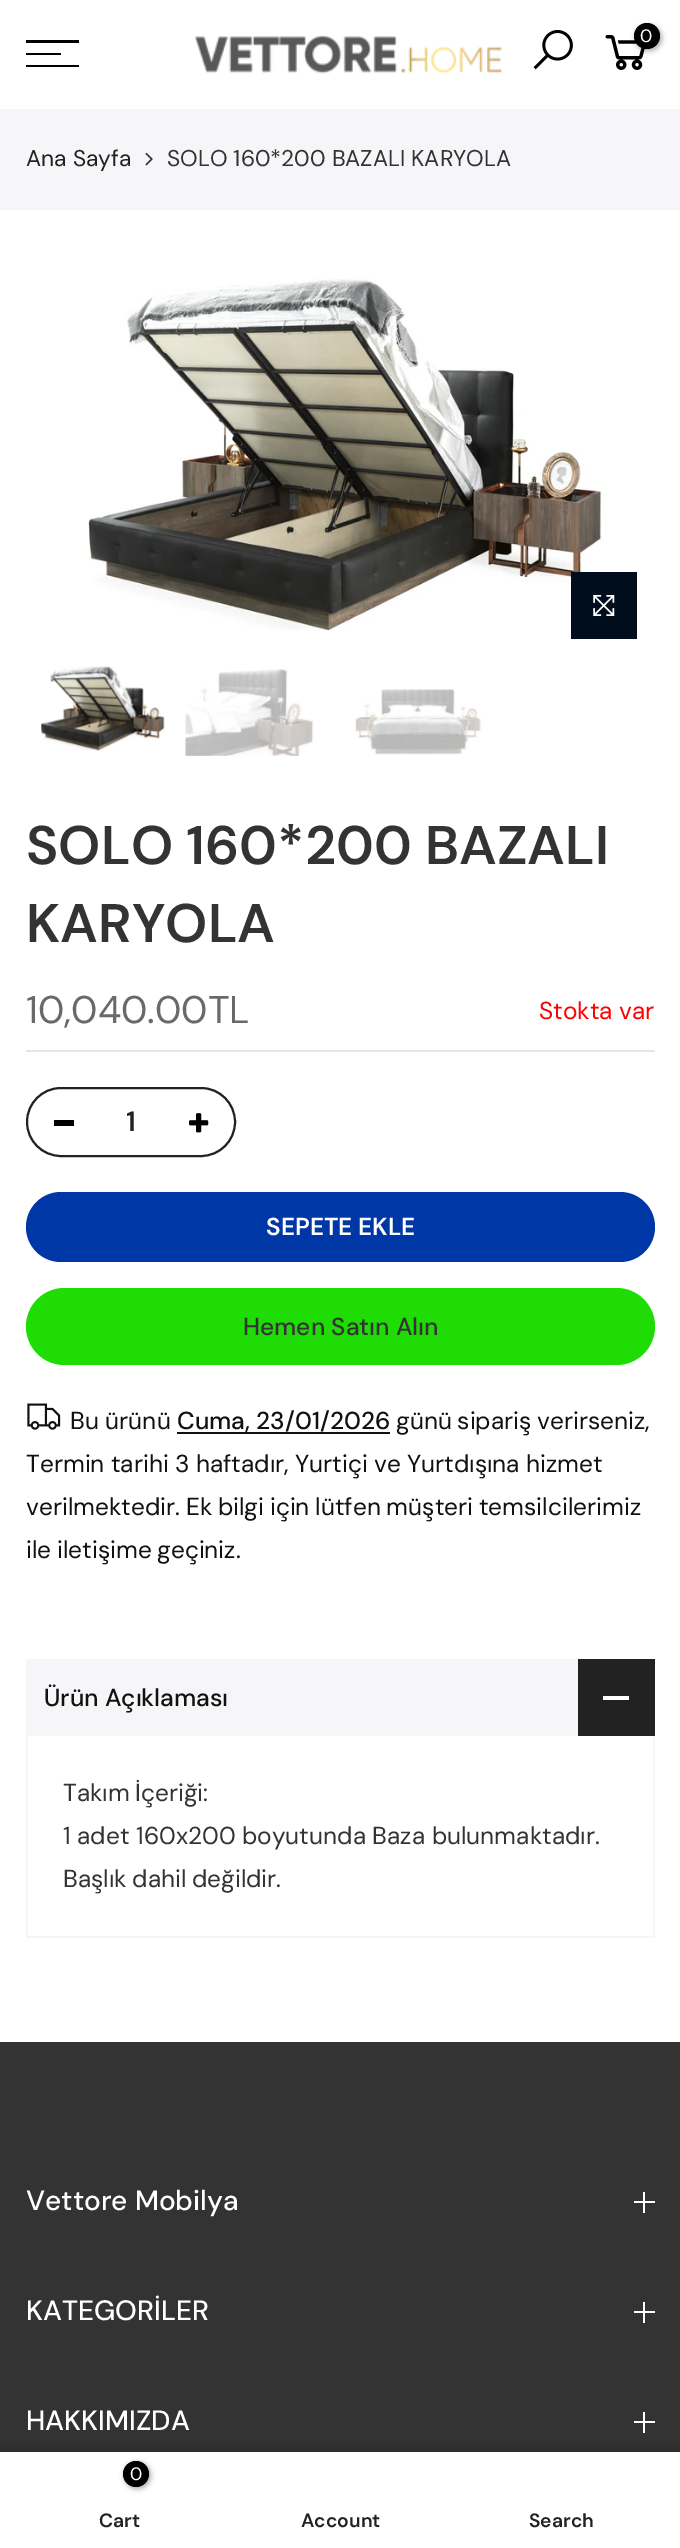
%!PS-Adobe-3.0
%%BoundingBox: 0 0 680 2548
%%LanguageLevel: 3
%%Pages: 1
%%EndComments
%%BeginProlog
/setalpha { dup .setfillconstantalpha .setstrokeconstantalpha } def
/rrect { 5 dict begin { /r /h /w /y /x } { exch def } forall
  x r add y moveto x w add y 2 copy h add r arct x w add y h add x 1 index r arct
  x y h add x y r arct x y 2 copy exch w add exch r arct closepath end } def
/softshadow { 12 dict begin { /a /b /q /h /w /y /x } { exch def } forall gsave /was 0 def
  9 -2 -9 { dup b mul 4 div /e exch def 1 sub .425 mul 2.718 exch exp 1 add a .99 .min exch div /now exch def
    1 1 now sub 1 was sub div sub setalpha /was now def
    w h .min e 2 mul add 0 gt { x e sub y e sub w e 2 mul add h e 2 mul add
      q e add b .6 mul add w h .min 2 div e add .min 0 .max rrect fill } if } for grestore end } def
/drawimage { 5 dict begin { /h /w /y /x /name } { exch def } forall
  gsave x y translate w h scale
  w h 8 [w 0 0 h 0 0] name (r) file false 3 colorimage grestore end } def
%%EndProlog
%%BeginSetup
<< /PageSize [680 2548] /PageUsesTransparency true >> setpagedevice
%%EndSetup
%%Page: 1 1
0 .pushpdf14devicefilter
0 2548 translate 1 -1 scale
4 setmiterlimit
1 setgray
0 0 680 2548 rectfill
0 setgray
26 40 53 3 rectfill
26 53 35 2 rectfill
26 65 53 2 rectfill
(images/1.raw) 195 35 307 39 drawimage
(images/2.raw) 533 30 40 40 drawimage
(images/3.raw) 605 35 40 35 drawimage
635 25 27 26 13 2.5 0.3 softshadow
newpath 647 36 13 0 360 arc closepath fill
0.965 0.965 0.973 setrgbcolor
0 109 680 101 rectfill
(images/4.raw) 145 152 8 14 drawimage
(images/5.raw) 88 278 514 353 drawimage
0 0.051 0.114 setrgbcolor
571 572 66 67 rectfill
(images/6.raw) 593 595 22 21 drawimage
(images/7.raw) 41 666 124 85 drawimage
(images/8.raw) 185 669 129 87 drawimage
(images/9.raw) 355 689 126 66 drawimage
0.898 setgray
26 1050 629 2 rectfill
0.133 setgray
2 setlinewidth
27 1088 208 68 34 rrect stroke
0 setgray
54 1120 20 6 rectfill
(images/10.raw) 189 1113 20 20 drawimage
0 0.216 0.655 setrgbcolor
26 1192 629 70 35 rrect fill
0.122 0.863 0.016 setrgbcolor
26 1288 629 77 38.5 rrect fill
(images/11.raw) 27 1403 34 27 drawimage
0.067 setgray
177 1432 213 2 rectfill
0.965 0.965 0.973 setrgbcolor
26 1659 552 77 rectfill
0.133 setgray
578 1659 77 77 rectfill
1 setgray
603 1696 26 4 rectfill
0.961 setgray
653 1736 2 201 rectfill
26 1936 629 2 rectfill
26 1736 2 201 rectfill
0.2 setgray
0 2042 680 410 rectfill
1 setgray
643 2192 2 21 rectfill
634 2201 21 2 rectfill
643 2302 2 21 rectfill
634 2311 21 2 rectfill
643 2412 2 21 rectfill
634 2421 21 2 rectfill
0 setgray
0 2452 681 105 0 8 0.12 softshadow
0 2452 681 96 0 8 0.12 softshadow
1 setgray
0 2452 680 96 rectfill
0 setgray
124 2462 27 27 13.5 2.5 0.3 softshadow
newpath 136 2474 13 0 360 arc closepath fill
/DMSans-Regular [18 0 0 -18 0 0] selectfont
1 setgray
640 42 moveto (0) show
/DMSans-Regular [22.75 0 0 -22.75 0 0] selectfont
0.133 setgray
26 166 moveto (Ana Sayfa) show
0.2 setgray
167 166 moveto (SOLO 160*200 BAZALI KARYOLA) show
/DMSans-SemiBold [54.25 0 0 -54.25 0 0] selectfont
26 864 moveto (SOLO 160*200 BAZALI) show
26 942 moveto (KARYOLA) show
/DMSans-Regular [38.5 0 0 -38.5 0 0] selectfont
0.412 setgray
26 1023 moveto (10,040.00TL) show
/DMSans-Regular [24.5 0 0 -24.5 0 0] selectfont
1 0 0 setrgbcolor
539 1019 moveto (Stokta var) show
/DMSans-SemiBold [28 0 0 -28 0 0] selectfont
0.133 setgray
126 1131 moveto (1) show
/DMSans-SemiBold [24.5 0 0 -24.5 0 0] selectfont
1 setgray
266 1235 moveto (SEPETE EKLE) show
/DMSans-Medium [24.5 0 0 -24.5 0 0] selectfont
0.2 setgray
243 1335 moveto (Hemen Satın Alın) show
/DMSans-Regular [24.5 0 0 -24.5 0 0] selectfont
0.067 setgray
70 1429 moveto (Bu ürünü) show
/DMSans-Medium [24.5 0 0 -24.5 0 0] selectfont
177 1429 moveto (Cuma, 23/01/2026) show
/DMSans-Regular [24.5 0 0 -24.5 0 0] selectfont
396 1429 moveto -1 0 32 (günü sipariş verirseniz,) widthshow
26 1472 moveto -0.25 0 32 (Termin tarihi 3 haftadır, Yurtiçi ve Yurtdışına hizmet) widthshow
26 1515 moveto -0.75 0 32 (verilmektedir. Ek bilgi için lütfen müşteri temsilcilerimiz) widthshow
26 1558 moveto -1 0 32 (ile iletişime geçiniz.) widthshow
/DMSans-Medium [24.5 0 0 -24.5 0 0] selectfont
44 1706 moveto (Ürün Açıklaması) show
/DMSans-Regular [24.5 0 0 -24.5 0 0] selectfont
0.2 setgray
63 1801 moveto -1 0 32 (Takım İçeriği:) widthshow
63 1844 moveto (1 adet 160x200 boyutunda Baza bulunmaktadır.) show
63 1887 moveto -1 0 32 (Başlık dahil değildir.) widthshow
/DMSans-Medium [28 0 0 -28 0 0] selectfont
1 setgray
26 2210 moveto (Vettore Mobilya) show
26 2320 moveto (KATEGORİLER) show
26 2430 moveto (HAKKIMIZDA) show
/DMSans-Regular [18 0 0 -18 0 0] selectfont
130 2480 moveto (0) show
/DMSans-SemiBold [19.25 0 0 -19.25 0 0] selectfont
0.133 setgray
99 2527 moveto (Cart) show
301 2527 moveto (Account) show
529 2527 moveto (Search) show
.poppdf14devicefilter showpage
%%EOF
